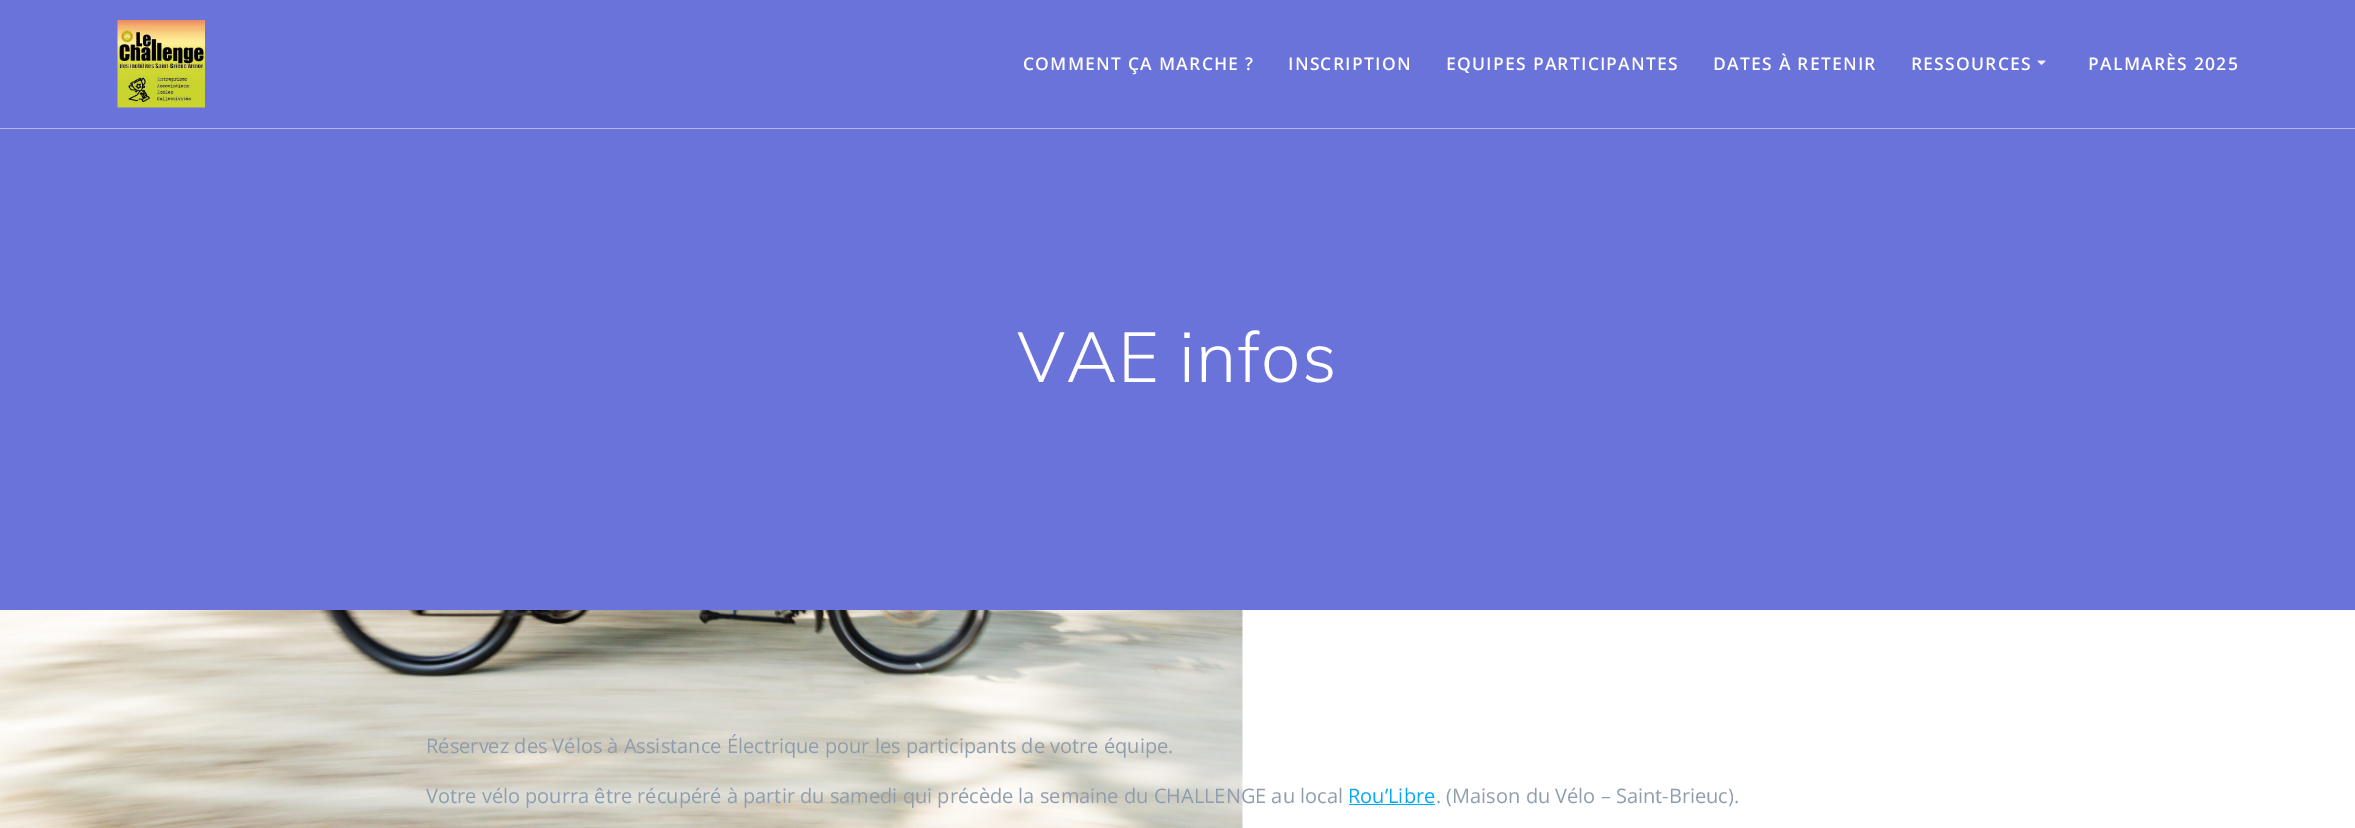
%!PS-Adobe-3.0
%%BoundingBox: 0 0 2355 828
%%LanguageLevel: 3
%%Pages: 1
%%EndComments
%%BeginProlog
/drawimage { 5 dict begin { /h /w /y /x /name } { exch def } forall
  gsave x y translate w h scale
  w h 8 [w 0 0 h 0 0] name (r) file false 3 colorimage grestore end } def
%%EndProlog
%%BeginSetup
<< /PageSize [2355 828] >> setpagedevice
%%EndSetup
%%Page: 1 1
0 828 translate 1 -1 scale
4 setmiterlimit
1 setgray
0 0 2355 828 rectfill
(images/1.raw) 0 610 1243 218 drawimage
0.416 0.451 0.855 setrgbcolor
0 0 2355 610 rectfill
0.71 0.725 0.929 setrgbcolor
0 128 2355 1 rectfill
(images/2.raw) 117 20 88 88 drawimage
(images/3.raw) 2037 60 9 5 drawimage
0.012 0.663 0.957 setrgbcolor
1349 804 86 1 rectfill
/OpenSans-SemiBold [17.5 0 0 -17.5 0 0] selectfont
1 setgray
1023 70 moveto 1.25 0 (COMMENT ÇA MARCHE ?) ashow
1288 70 moveto 1.25 0 (INSCRIPTION) ashow
1446 70 moveto 1.25 0 (EQUIPES PARTICIPANTES) ashow
1713 70 moveto 1.25 0 (DATES À RETENIR) ashow
1911 70 moveto 1.25 0 (RESSOURCES) ashow
2088 70 moveto 1.25 0 (PALMARÈS 2025) ashow
/Muli-Light [70 0 0 -70 0 0] selectfont
1017 382 moveto 1.1 0 (VAE infos) ashow
/OpenSans-Regular [20 0 0 -20 0 0] selectfont
0.557 0.616 0.682 setrgbcolor
426 753 moveto (Réservez des Vélos à Assistance Électrique pour les participants de votre équipe.) show
426 803 moveto (Votre vélo pourra être récupéré à partir du samedi qui précède la semaine du CHALLENGE au local) show
0.012 0.663 0.957 setrgbcolor
1348 803 moveto (Rou’Libre) show
0.557 0.616 0.682 setrgbcolor
1436 803 moveto (. \(Maison du Vélo – Saint-Brieuc\).) show
showpage
%%EOF
